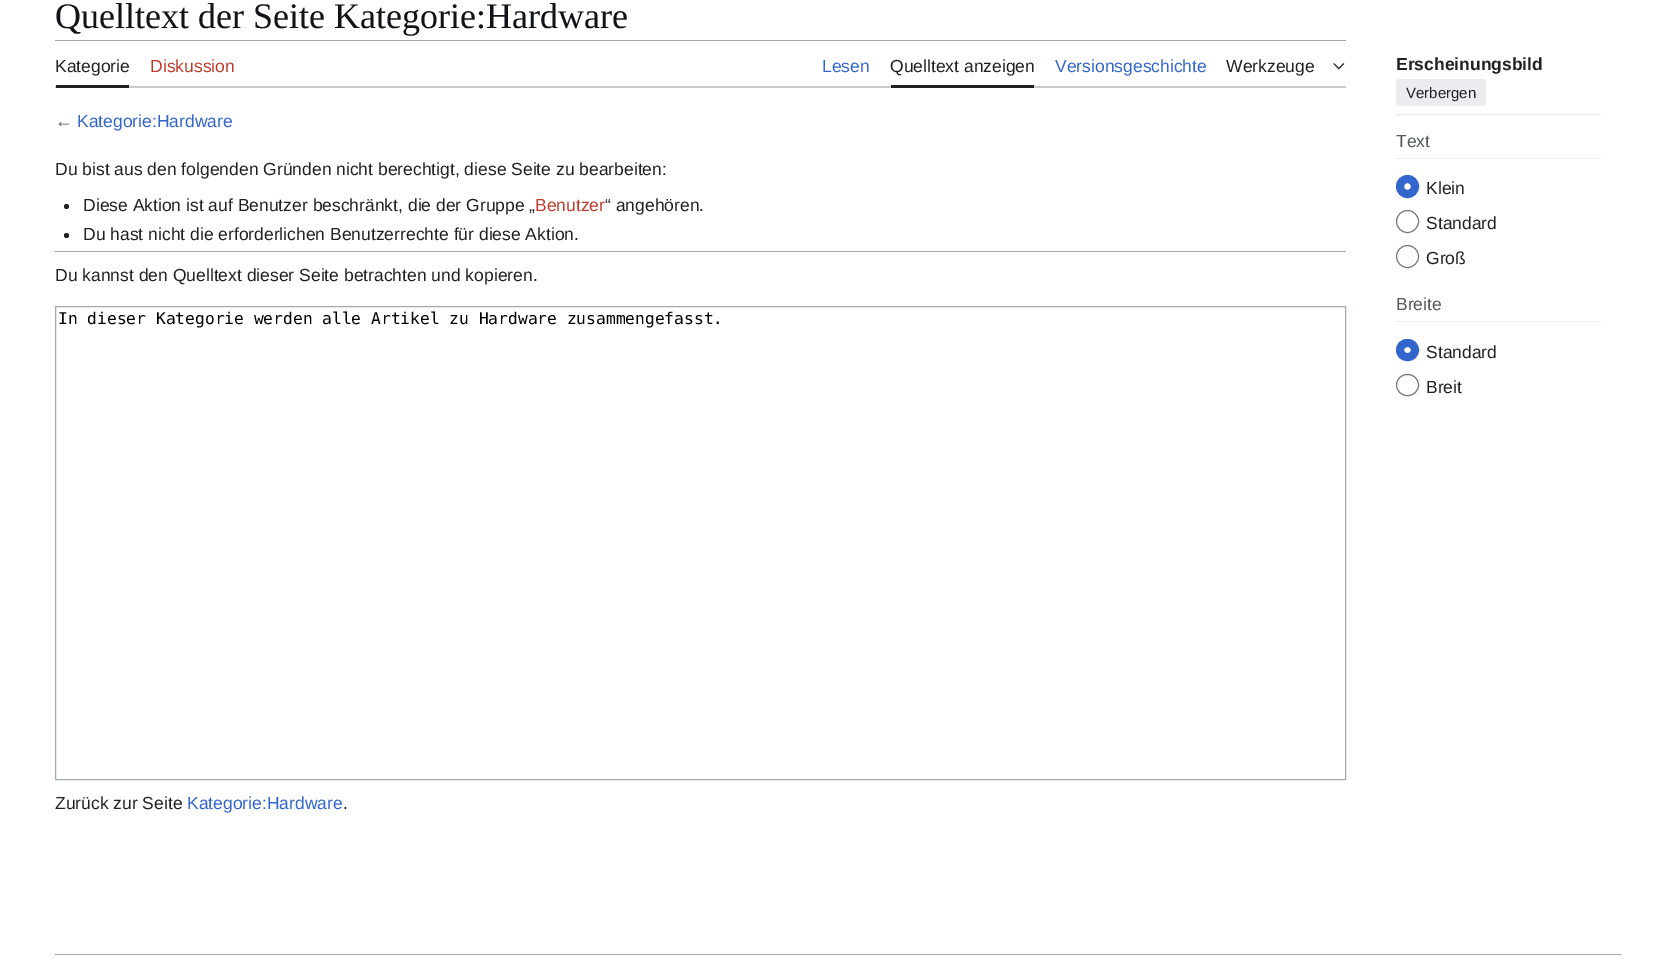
%!PS-Adobe-3.0
%%BoundingBox: 0 0 1676 977
%%LanguageLevel: 3
%%Pages: 1
%%EndComments
%%BeginProlog
/rrect { 5 dict begin { /r /h /w /y /x } { exch def } forall
  x r add y moveto x w add y 2 copy h add r arct x w add y h add x 1 index r arct
  x y h add x y r arct x y 2 copy exch w add exch r arct closepath end } def
/drawimage { 5 dict begin { /h /w /y /x /name } { exch def } forall
  gsave x y translate w h scale
  w h 8 [w 0 0 h 0 0] name (r) file false 3 colorimage grestore end } def
%%EndProlog
%%BeginSetup
<< /PageSize [1676 977] >> setpagedevice
%%EndSetup
%%Page: 1 1
0 977 translate 1 -1 scale
4 setmiterlimit
1 setgray
0 0 1676 977 rectfill
0.635 0.663 0.694 setrgbcolor
55 40 1291 1 rectfill
0.784 0.8 0.82 setrgbcolor
55 86 1291 2 rectfill
0.125 0.129 0.133 setrgbcolor
56 85 73 3 rectfill
891 85 143 3 rectfill
(images/1.raw) 1333 63 12 7 drawimage
0.918 0.925 0.941 setrgbcolor
1396 114 205 1 rectfill
1396 79 90 27 2.5 rrect fill
1396 158 205 1 rectfill
0.2 0.4 0.8 setrgbcolor
8 setlinewidth
newpath 1407.5 186.5 7.5 0 360 arc closepath stroke
0.447 0.467 0.49 setrgbcolor
1 setlinewidth
newpath 1407.5 221.5 11 0 360 arc closepath stroke
newpath 1407.5 256.5 11 0 360 arc closepath stroke
0.918 0.925 0.941 setrgbcolor
1396 321 205 1 rectfill
0.2 0.4 0.8 setrgbcolor
8 setlinewidth
1400 343 15 14 7 rrect stroke
0.447 0.467 0.49 setrgbcolor
1 setlinewidth
1396.5 374.5 22 21 10.5 rrect stroke
0.125 0.129 0.133 setrgbcolor
newpath 66.5 206.5 2.5 0 360 arc closepath fill
newpath 66.5 235.5 2.5 0 360 arc closepath fill
0.635 0.663 0.694 setrgbcolor
55 251 1291 1 rectfill
55.5 306.5 1290 473 rectstroke
55 954 1566 1 rectfill
/LiberationSerif-Regular [36 0 0 -36 0 0] selectfont
0.063 0.078 0.094 setrgbcolor
55 28 moveto (Quelltext der Seite Kategorie:Hardware) show
/LiberationSans-Regular [17.5 0 0 -17.5 0 0] selectfont
0.125 0.129 0.133 setrgbcolor
55 72 moveto (Kategorie) show
0.749 0.235 0.173 setrgbcolor
150 72 moveto (Diskussion) show
0.2 0.4 0.8 setrgbcolor
822 72 moveto (Lesen) show
0.125 0.129 0.133 setrgbcolor
890 72 moveto (Quelltext anzeigen) show
0.2 0.4 0.8 setrgbcolor
1055 72 moveto (Versionsgeschichte) show
0.125 0.129 0.133 setrgbcolor
1226 72 moveto (Werkzeuge) show
/LiberationSans-Bold [17.5 0 0 -17.5 0 0] selectfont
1396 70 moveto (Erscheinungsbild) show
/LiberationSans-Regular [15 0 0 -15 0 0] selectfont
1406 98 moveto (Verbergen) show
/LiberationSans-Regular [17.5 0 0 -17.5 0 0] selectfont
0.329 0.349 0.365 setrgbcolor
1396 147 moveto (Text) show
0.125 0.129 0.133 setrgbcolor
1426 194 moveto (Klein) show
1426 229 moveto (Standard) show
1426 264 moveto (Groß) show
0.329 0.349 0.365 setrgbcolor
1396 310 moveto (Breite) show
0.125 0.129 0.133 setrgbcolor
1426 358 moveto (Standard) show
1426 393 moveto (Breit) show
0.329 0.349 0.365 setrgbcolor
55 127 moveto (←) show
0.2 0.4 0.8 setrgbcolor
77 127 moveto (Kategorie:Hardware) show
0.125 0.129 0.133 setrgbcolor
55 175 moveto (Du bist aus den folgenden Gründen nicht berechtigt, diese Seite zu bearbeiten:) show
83 211 moveto (Diese Aktion ist auf Benutzer beschränkt, die der Gruppe „) show
0.749 0.235 0.173 setrgbcolor
535 211 moveto (Benutzer) show
0.125 0.129 0.133 setrgbcolor
605 211 moveto (“ angehören.) show
83 240 moveto (Du hast nicht die erforderlichen Benutzerrechte für diese Aktion.) show
55 281 moveto (Du kannst den Quelltext dieser Seite betrachten und kopieren.) show
/DejaVuSansMono-Regular [16.25 0 0 -16.25 0 0] selectfont
0 setgray
58 324 moveto (In dieser Kategorie werden alle Artikel zu Hardware zusammengefasst.) show
/LiberationSans-Regular [17.5 0 0 -17.5 0 0] selectfont
0.125 0.129 0.133 setrgbcolor
55 809 moveto (Zurück zur Seite) show
0.2 0.4 0.8 setrgbcolor
187 809 moveto (Kategorie:Hardware) show
0.125 0.129 0.133 setrgbcolor
343 809 moveto (.) show
showpage
%%EOF
